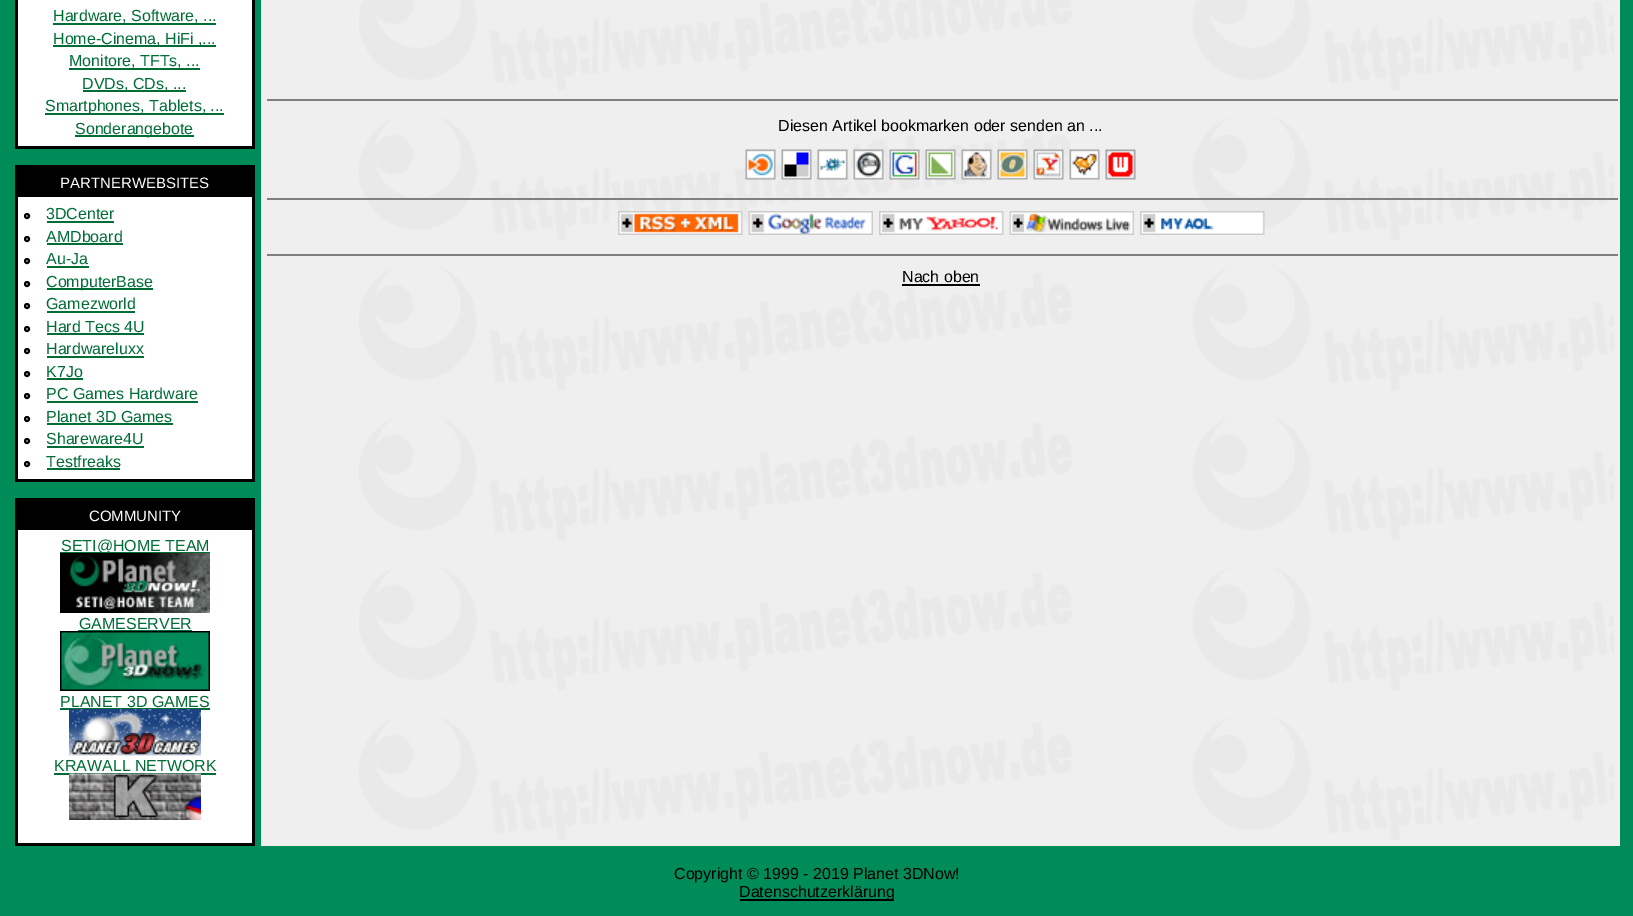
%!PS-Adobe-3.0
%%BoundingBox: 0 0 1633 916
%%LanguageLevel: 3
%%Pages: 1
%%EndComments
%%BeginProlog
/drawimage { 5 dict begin { /h /w /y /x /name } { exch def } forall
  gsave x y translate w h scale
  w h 8 [w 0 0 h 0 0] name (r) file false 3 colorimage grestore end } def
%%EndProlog
%%BeginSetup
<< /PageSize [1633 916] >> setpagedevice
%%EndSetup
%%Page: 1 1
0 916 translate 1 -1 scale
4 setmiterlimit
0 0.549 0.345 setrgbcolor
0 0 1633 916 rectfill
0 setgray
15 0 240 149 rectfill
1 setgray
18 0 234 146 rectfill
0 0.424 0.212 setrgbcolor
53 23 163 2 rectfill
53 45 163 2 rectfill
69 68 131 2 rectfill
83 90 103 2 rectfill
45 113 179 2 rectfill
75 135 119 2 rectfill
0 setgray
15 165 240 317 rectfill
1 setgray
18 197 234 282 rectfill
0 setgray
2 setlinewidth
newpath 27 216 2 0 360 arc closepath stroke
0 0.424 0.212 setrgbcolor
47 221 67 2 rectfill
0 setgray
newpath 27 239 2 0 360 arc closepath stroke
0 0.424 0.212 setrgbcolor
47 243 76 2 rectfill
0 setgray
newpath 27 261 2 0 360 arc closepath stroke
0 0.424 0.212 setrgbcolor
47 266 42 2 rectfill
0 setgray
newpath 27 284 2 0 360 arc closepath stroke
0 0.424 0.212 setrgbcolor
47 288 106 2 rectfill
0 setgray
newpath 27 306 2 0 360 arc closepath stroke
0 0.424 0.212 setrgbcolor
47 311 88 2 rectfill
0 setgray
newpath 27 329 2 0 360 arc closepath stroke
0 0.424 0.212 setrgbcolor
47 333 97 2 rectfill
0 setgray
newpath 27 351 2 0 360 arc closepath stroke
0 0.424 0.212 setrgbcolor
47 356 97 2 rectfill
0 setgray
newpath 27 374 2 0 360 arc closepath stroke
0 0.424 0.212 setrgbcolor
47 378 36 2 rectfill
0 setgray
newpath 27 396 2 0 360 arc closepath stroke
0 0.424 0.212 setrgbcolor
47 401 151 2 rectfill
0 setgray
newpath 27 419 2 0 360 arc closepath stroke
0 0.424 0.212 setrgbcolor
47 423 126 2 rectfill
0 setgray
newpath 27 441 2 0 360 arc closepath stroke
0 0.424 0.212 setrgbcolor
47 446 97 2 rectfill
0 setgray
newpath 27 464 2 0 360 arc closepath stroke
0 0.424 0.212 setrgbcolor
47 468 73 2 rectfill
0 setgray
15 498 240 348 rectfill
1 setgray
18 530 234 313 rectfill
0 0.424 0.212 setrgbcolor
60 552 150 1 rectfill
78 630 114 1 rectfill
(images/2.raw) 60 631 150 60 drawimage
60 708 150 2 rectfill
(images/3.raw) 69 709 132 47 drawimage
54 773 162 2 rectfill
(images/4.raw) 69 773 132 47 drawimage
0.937 setgray
261 0 1359 846 rectfill
(images/5.raw) 359 0 1255 840 drawimage
0.502 setgray
267 99 1351 2 rectfill
(images/6.raw) 745 149 31 31 drawimage
(images/7.raw) 781 149 31 31 drawimage
(images/8.raw) 817 149 31 31 drawimage
(images/9.raw) 853 149 31 31 drawimage
(images/10.raw) 889 149 31 31 drawimage
(images/11.raw) 925 149 31 31 drawimage
(images/12.raw) 961 149 31 31 drawimage
(images/13.raw) 997 149 31 31 drawimage
(images/14.raw) 1033 149 31 31 drawimage
(images/15.raw) 1069 149 31 31 drawimage
(images/16.raw) 1105 149 31 31 drawimage
267 198 1351 2 rectfill
(images/17.raw) 618 211 125 24 drawimage
(images/18.raw) 748 211 125 24 drawimage
(images/19.raw) 879 211 125 24 drawimage
(images/20.raw) 1009 211 125 24 drawimage
(images/21.raw) 1140 211 125 24 drawimage
267 254 1351 2 rectfill
0 setgray
902 284 78 2 rectfill
740 899 154 2 rectfill
/LiberationSans-Regular [16 0 0 -16 0 0] selectfont
0 0.424 0.212 setrgbcolor
53 21 moveto (Hardware, Software, ...) show
53 44 moveto (Home-Cinema, HiFi ,...) show
69 66 moveto (Monitore, TFTs, ...) show
82 89 moveto (DVDs, CDs, ...) show
45 111 moveto (Smartphones, Tablets, ...) show
75 134 moveto (Sonderangebote) show
/LiberationSans-Regular [15 0 0 -15 0 0] selectfont
1 setgray
60 188 moveto (PARTNERWEBSITES) show
/LiberationSans-Regular [16 0 0 -16 0 0] selectfont
0 0.424 0.212 setrgbcolor
46 219 moveto (3DCenter) show
46 242 moveto (AMDboard) show
46 264 moveto (Au-Ja) show
46 287 moveto (ComputerBase) show
46 309 moveto (Gamezworld) show
46 332 moveto (Hard Tecs 4U) show
46 354 moveto (Hardwareluxx) show
46 377 moveto (K7Jo) show
46 399 moveto (PC Games Hardware) show
46 422 moveto (Planet 3D Games) show
46 444 moveto (Shareware4U) show
46 467 moveto (Testfreaks) show
/LiberationSans-Regular [15 0 0 -15 0 0] selectfont
1 setgray
89 521 moveto (COMMUNITY) show
/LiberationSans-Regular [16 0 0 -16 0 0] selectfont
0 0.424 0.212 setrgbcolor
61 551 moveto (SETI@HOME TEAM) show
(images/1.raw) 60 553 150 60 drawimage
79 629 moveto (GAMESERVER) show
60 707 moveto (PLANET 3D GAMES) show
54 771 moveto (KRAWALL NETWORK) show
0 setgray
778 131 moveto (Diesen Artikel bookmarken oder senden an ...) show
902 282 moveto (Nach oben) show
674 879 moveto (Copyright © 1999 - 2019 Planet 3DNow!) show
739 897 moveto (Datenschutzerklärung) show
showpage
%%EOF
